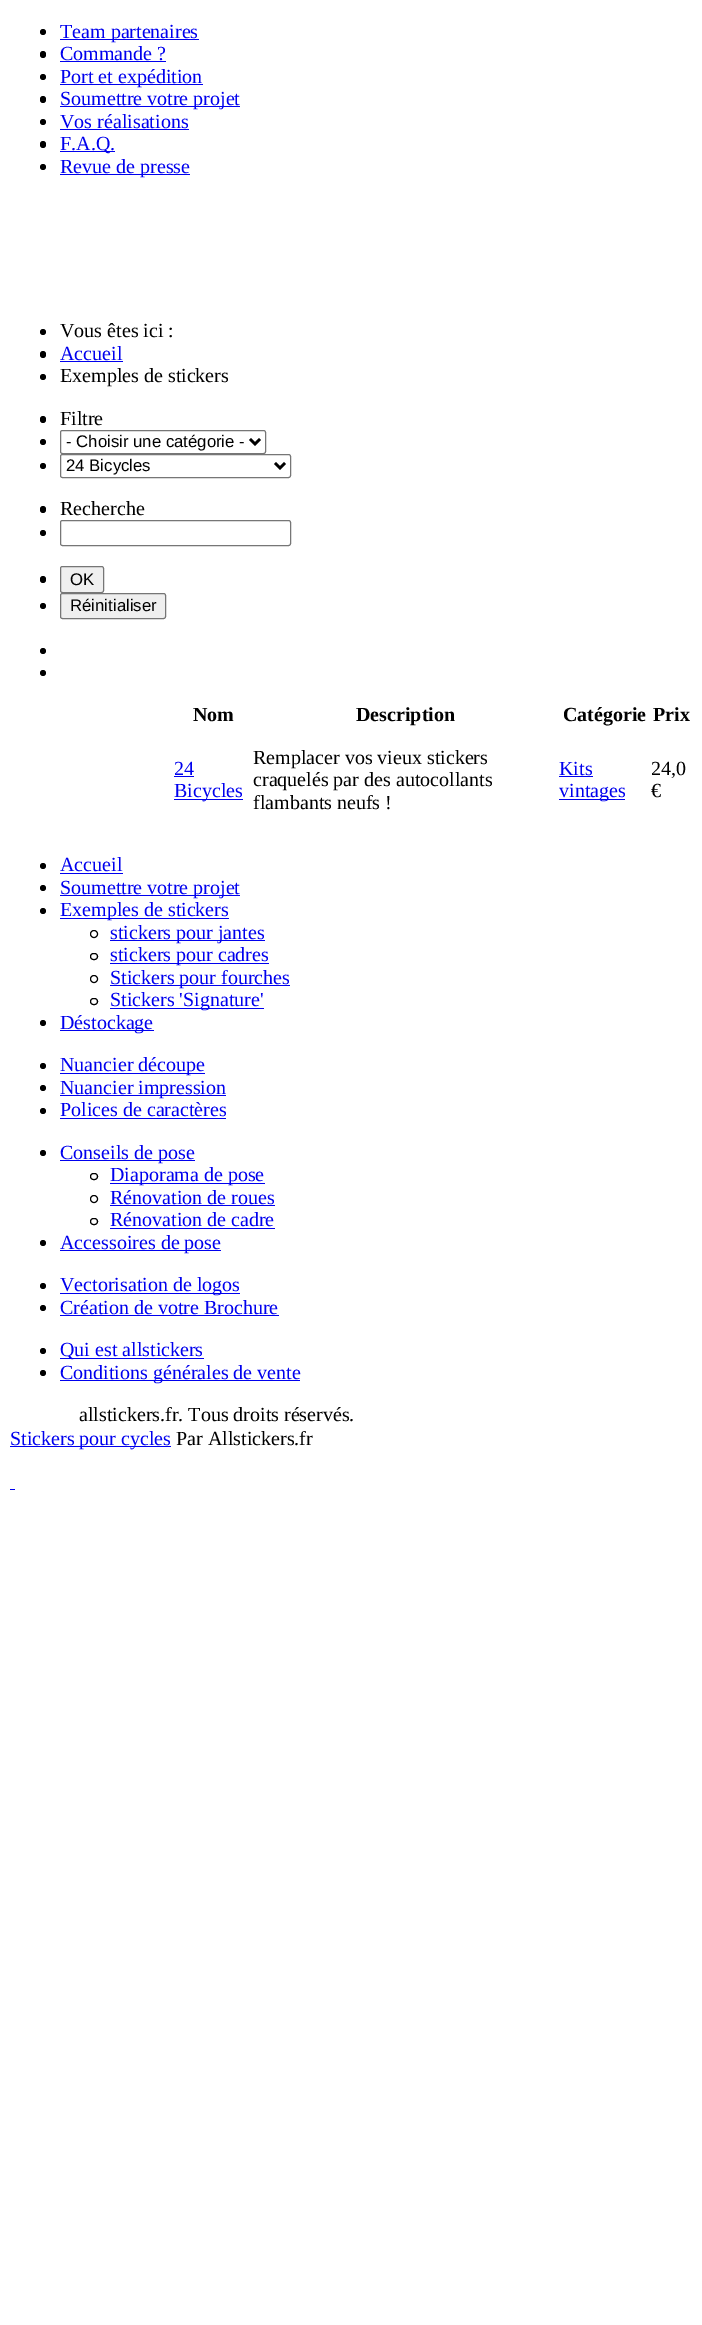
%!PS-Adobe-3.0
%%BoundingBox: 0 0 702 2325
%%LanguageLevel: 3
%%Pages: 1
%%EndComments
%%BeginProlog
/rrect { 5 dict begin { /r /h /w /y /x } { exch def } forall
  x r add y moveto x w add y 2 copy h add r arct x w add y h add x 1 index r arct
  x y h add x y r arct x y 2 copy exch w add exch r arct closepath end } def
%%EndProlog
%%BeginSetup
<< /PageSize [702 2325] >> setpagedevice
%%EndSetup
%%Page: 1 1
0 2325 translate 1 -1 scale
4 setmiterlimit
1 setgray
0 0 702 2325 rectfill
0 setgray
newpath 43 32 3 0 360 arc closepath fill
0 0 0.933 setrgbcolor
60 39 139 1 rectfill
0 setgray
40 51 6 7 3 rrect fill
0 0 0.933 setrgbcolor
60 61 106 1 rectfill
0 setgray
newpath 43 77 3 0 360 arc closepath fill
0 0 0.933 setrgbcolor
60 84 143 1 rectfill
0 setgray
40 96 6 7 3 rrect fill
0 0 0.933 setrgbcolor
60 106 180 1 rectfill
0 setgray
newpath 43 122 3 0 360 arc closepath fill
0 0 0.933 setrgbcolor
60 129 129 1 rectfill
0 setgray
40 141 6 7 3 rrect fill
0 0 0.933 setrgbcolor
60 151 55 1 rectfill
0 setgray
newpath 43 167 3 0 360 arc closepath fill
0 0 0.933 setrgbcolor
60 174 130 1 rectfill
0 setgray
newpath 43 332 3 0 360 arc closepath fill
40 351 6 7 3 rrect fill
0 0 0.933 setrgbcolor
60 361 63 1 rectfill
0 setgray
newpath 43 377 3 0 360 arc closepath fill
40 416 6 7 3 rrect fill
newpath 43 442 3 0 360 arc closepath fill
0.463 setgray
60.5 430.5 205 23 2 rrect stroke
0 setgray
2.5 setlinewidth
newpath 250 439 moveto 255 444 lineto 260 439 lineto stroke
newpath 43 466 3 0 360 arc closepath fill
0.463 setgray
1 setlinewidth
60.5 454.5 230 23 2 rrect stroke
0 setgray
2.5 setlinewidth
newpath 275 463 moveto 280 468 lineto 285 463 lineto stroke
40 506 6 7 3 rrect fill
newpath 43 533 3 0 360 arc closepath fill
0.463 setgray
1 setlinewidth
60.5 520.5 230 25 2 rrect stroke
0 setgray
40 576 6 7 3 rrect fill
0.937 setgray
60.5 566.5 43 26 2 rrect gsave fill grestore
0.463 setgray
stroke
0 setgray
newpath 43 606 3 0 360 arc closepath fill
0.937 setgray
60.5 593.5 105 25 2 rrect gsave fill grestore
0.463 setgray
stroke
0 setgray
newpath 43 651 3 0 360 arc closepath fill
newpath 43 673 3 0 360 arc closepath fill
0 0 0.933 setrgbcolor
174 776 20 1 rectfill
174 799 69 1 rectfill
559 776 34 1 rectfill
559 799 66 1 rectfill
0 setgray
newpath 43 866 3 0 360 arc closepath fill
0 0 0.933 setrgbcolor
60 873 63 1 rectfill
0 setgray
newpath 43 888 3 0 360 arc closepath fill
0 0 0.933 setrgbcolor
60 895 180 1 rectfill
0 setgray
newpath 43 911 3 0 360 arc closepath fill
0 0 0.933 setrgbcolor
60 918 169 1 rectfill
0 setgray
newpath 94 934 3.5 0 360 arc closepath stroke
0 0 0.933 setrgbcolor
110 940 155 1 rectfill
0 setgray
90.5 953.5 7 6 3 rrect stroke
0 0 0.933 setrgbcolor
110 963 159 1 rectfill
0 setgray
newpath 94 979 3.5 0 360 arc closepath stroke
0 0 0.933 setrgbcolor
110 985 180 1 rectfill
0 setgray
90.5 998.5 7 6 3 rrect stroke
0 0 0.933 setrgbcolor
110 1008 154 1 rectfill
0 setgray
newpath 43 1023 3 0 360 arc closepath fill
0 0 0.933 setrgbcolor
60 1030 94 1 rectfill
0 setgray
newpath 43 1066 3 0 360 arc closepath fill
0 0 0.933 setrgbcolor
60 1073 145 1 rectfill
0 setgray
newpath 43 1088 3 0 360 arc closepath fill
0 0 0.933 setrgbcolor
60 1095 166 1 rectfill
0 setgray
newpath 43 1111 3 0 360 arc closepath fill
0 0 0.933 setrgbcolor
60 1118 166 1 rectfill
0 setgray
newpath 43 1153 3 0 360 arc closepath fill
0 0 0.933 setrgbcolor
60 1160 135 1 rectfill
0 setgray
90.5 1173.5 7 6 3 rrect stroke
0 0 0.933 setrgbcolor
110 1183 155 1 rectfill
0 setgray
newpath 94 1199 3.5 0 360 arc closepath stroke
0 0 0.933 setrgbcolor
110 1205 165 1 rectfill
0 setgray
90.5 1218.5 7 6 3 rrect stroke
0 0 0.933 setrgbcolor
110 1228 165 1 rectfill
0 setgray
newpath 43 1243 3 0 360 arc closepath fill
0 0 0.933 setrgbcolor
60 1250 161 1 rectfill
0 setgray
newpath 43 1286 3 0 360 arc closepath fill
0 0 0.933 setrgbcolor
60 1293 180 1 rectfill
0 setgray
newpath 43 1308 3 0 360 arc closepath fill
0 0 0.933 setrgbcolor
60 1315 219 1 rectfill
0 setgray
newpath 43 1351 3 0 360 arc closepath fill
0 0 0.933 setrgbcolor
60 1358 144 1 rectfill
0 setgray
newpath 43 1373 3 0 360 arc closepath fill
0 0 0.933 setrgbcolor
60 1380 240 1 rectfill
10 1446 161 1 rectfill
10 1489 5 1 rectfill
/LiberationSerif-Regular [20 0 0 -20 0 0] selectfont
60 38 moveto (Team partenaires) show
60 60 moveto (Commande ?) show
60 83 moveto (Port et expédition) show
60 105 moveto (Soumettre votre projet) show
60 128 moveto (Vos réalisations) show
60 150 moveto (F.A.Q.) show
60 173 moveto (Revue de presse) show
0 setgray
60 337 moveto (Vous êtes ici :) show
0 0 0.933 setrgbcolor
60 360 moveto (Accueil) show
0 setgray
60 382 moveto (Exemples de stickers) show
60 425 moveto (Filtre) show
/LiberationSans-Regular [16.75 0 0 -16.75 0 0] selectfont
66 447 moveto (- Choisir une catégorie -) show
66 471 moveto (24 Bicycles) show
/LiberationSerif-Regular [20 0 0 -20 0 0] selectfont
60 515 moveto (Recherche) show
/LiberationSans-Regular [16.75 0 0 -16.75 0 0] selectfont
70 585 moveto (OK) show
70 611 moveto (Réinitialiser) show
/LiberationSerif-Bold [20 0 0 -20 0 0] selectfont
193 721 moveto (Nom) show
356 721 moveto (Description) show
563 721 moveto (Catégorie) show
653 721 moveto (Prix) show
/LiberationSerif-Regular [20 0 0 -20 0 0] selectfont
0 0 0.933 setrgbcolor
174 775 moveto (24) show
174 797 moveto (Bicycles) show
0 setgray
253 764 moveto (Remplacer vos vieux stickers) show
253 786 moveto (craquelés par des autocollants) show
253 809 moveto (flambants neufs !) show
0 0 0.933 setrgbcolor
559 775 moveto (Kits) show
559 797 moveto (vintages) show
0 setgray
651 775 moveto (24,0) show
651 797 moveto (€) show
0 0 0.933 setrgbcolor
60 871 moveto (Accueil) show
60 894 moveto (Soumettre votre projet) show
60 916 moveto (Exemples de stickers) show
110 939 moveto (stickers pour jantes) show
110 961 moveto (stickers pour cadres) show
110 984 moveto (Stickers pour fourches) show
110 1006 moveto (Stickers 'Signature') show
60 1029 moveto (Déstockage) show
60 1071 moveto (Nuancier découpe) show
60 1094 moveto (Nuancier impression) show
60 1116 moveto (Polices de caractères) show
60 1159 moveto (Conseils de pose) show
110 1181 moveto (Diaporama de pose) show
110 1204 moveto (Rénovation de roues) show
110 1226 moveto (Rénovation de cadre) show
60 1249 moveto (Accessoires de pose) show
60 1291 moveto (Vectorisation de logos) show
60 1314 moveto (Création de votre Brochure) show
60 1356 moveto (Qui est allstickers) show
60 1379 moveto (Conditions générales de vente) show
0 setgray
79 1421 moveto (allstickers.fr. Tous droits réservés.) show
0 0 0.933 setrgbcolor
10 1445 moveto (Stickers pour cycles) show
0 setgray
176 1445 moveto (Par Allstickers.fr) show
showpage
%%EOF
